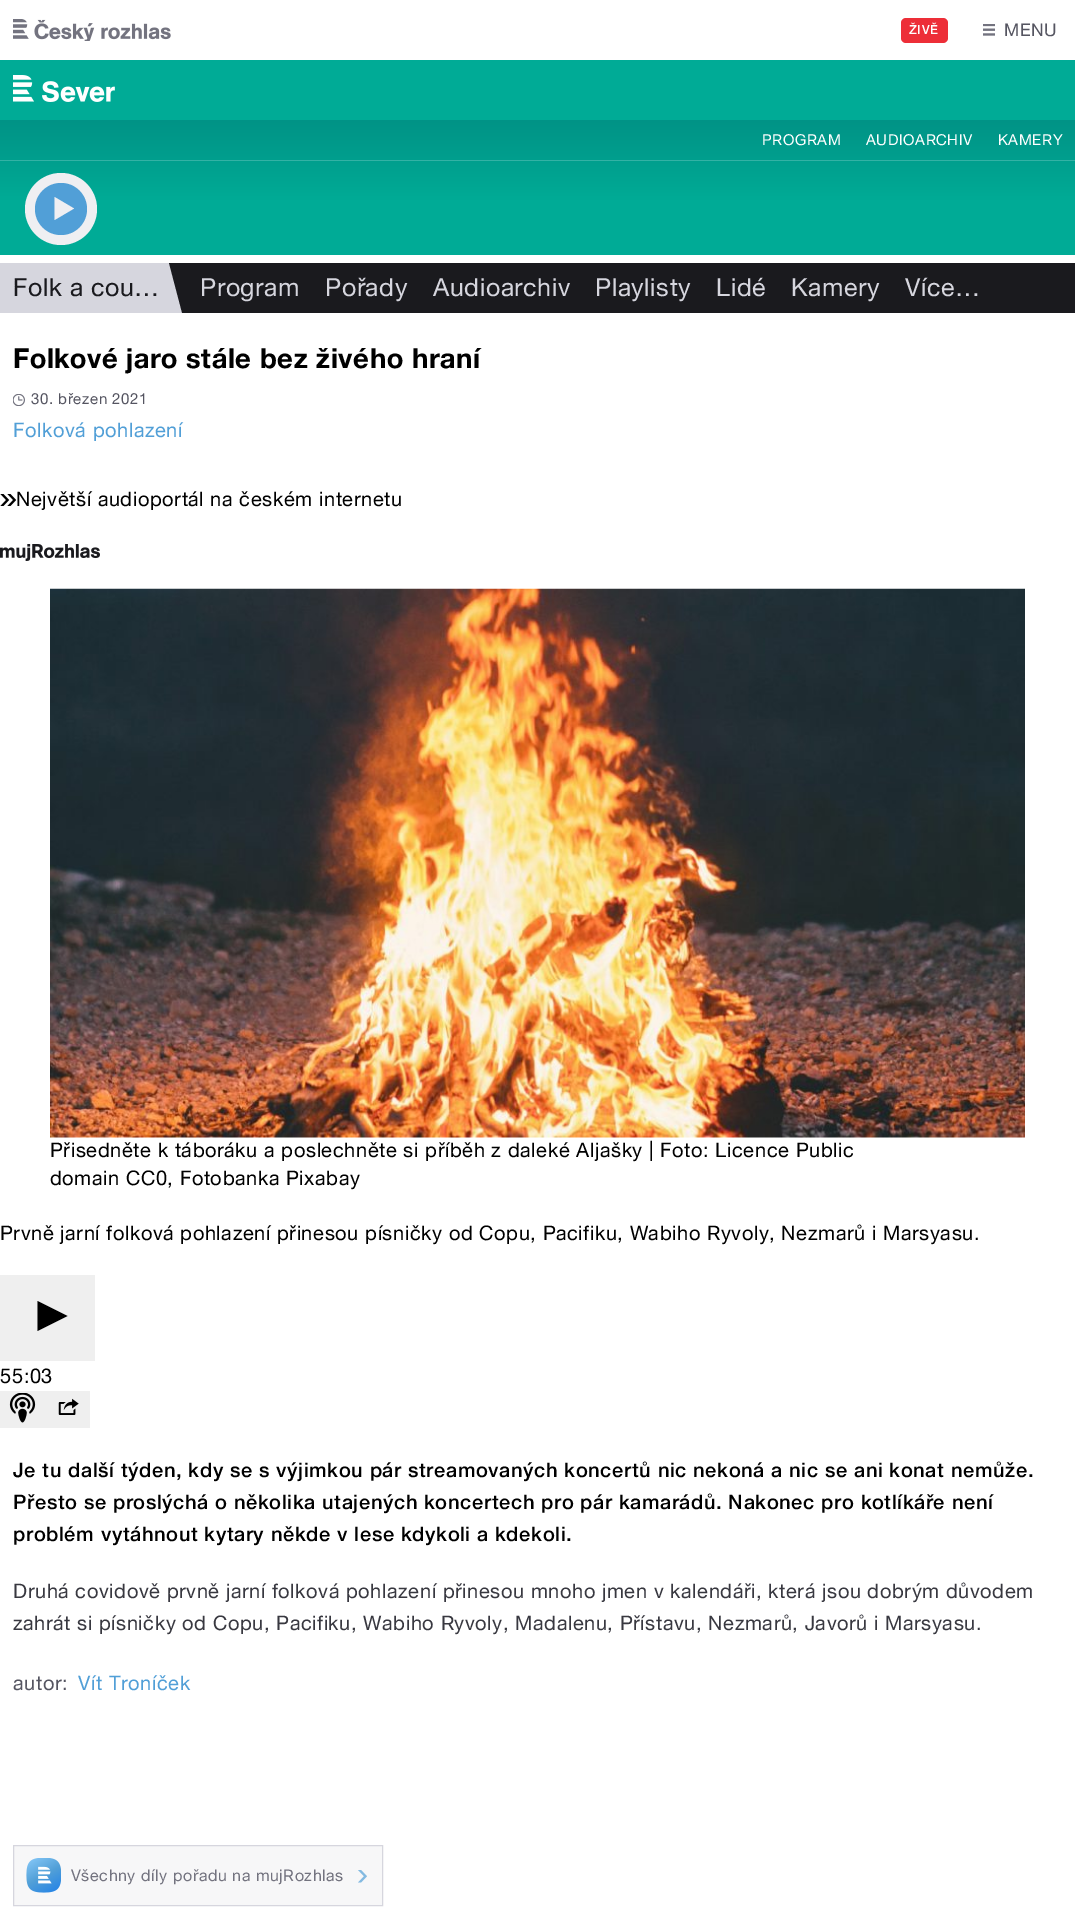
%!PS-Adobe-3.0
%%BoundingBox: 0 0 1075 1921
%%LanguageLevel: 3
%%Pages: 1
%%EndComments
%%BeginProlog
/rrect { 5 dict begin { /r /h /w /y /x } { exch def } forall
  x r add y moveto x w add y 2 copy h add r arct x w add y h add x 1 index r arct
  x y h add x y r arct x y 2 copy exch w add exch r arct closepath end } def
/drawimage { 5 dict begin { /h /w /y /x /name } { exch def } forall
  gsave x y translate w h scale
  w h 8 [w 0 0 h 0 0] name (r) file false 3 colorimage grestore end } def
%%EndProlog
%%BeginSetup
<< /PageSize [1075 1921] >> setpagedevice
%%EndSetup
%%Page: 1 1
0 1921 translate 1 -1 scale
4 setmiterlimit
1 setgray
0 0 1075 1921 rectfill
(images/1.raw) 13 19 158 22 drawimage
0.929 0.18 0.22 setrgbcolor
901 18 47 25 5 rrect fill
(images/2.raw) 983 24 12 12 drawimage
0 0.671 0.588 setrgbcolor
0 60 1075 60 rectfill
(images/3.raw) 13 75 102 27 drawimage
gsave newpath 0 120 moveto 1075 120 lineto 1075 255 lineto 0 255 lineto closepath clip newpath
<< /ShadingType 2 /ColorSpace /DeviceRGB /Coords [538 120 538 255] /Extend [true true] /Function << /FunctionType 3 /Domain [0 1] /Functions [<< /FunctionType 2 /Domain [0 1] /C0 [0 0.576 0.525] /C1 [0 0.671 0.588] /N 1 >> << /FunctionType 2 /Domain [0 1] /C0 [0 0.671 0.588] /C1 [0 0.671 0.588] /N 1 >>] /Bounds [0.6] /Encode [0 1 0 1] >> >> shfill grestore
0.2 0.698 0.647 setrgbcolor
0 160 1075 1 rectfill
0.937 0.937 0.949 setrgbcolor
newpath 61 209 36 0 360 arc closepath fill
0.318 0.624 0.843 setrgbcolor
newpath 61 209 26 0 360 arc closepath fill
0.937 0.937 0.949 setrgbcolor
newpath 54.5 197 moveto 74 208.5 lineto 54.5 220 lineto closepath fill
0.839 0.839 0.871 setrgbcolor
0 263 183 50 rectfill
gsave
0 263 188 50 rectclip
0.102 0.102 0.118 setrgbcolor
newpath 168 259 moveto 228 243 lineto 245 303 lineto 184 320 lineto closepath fill
grestore
0.102 0.102 0.118 setrgbcolor
188 263 887 50 rectfill
(images/4.raw) 13 394 12 12 drawimage
(images/5.raw) 0 494 16 12 drawimage
(images/6.raw) 0 544 100 17 drawimage
(images/7.raw) 50 588 975 550 drawimage
0.937 setgray
0 1275 95 86 rectfill
0 setgray
newpath 37.5 1331 moveto 37.5 1301 lineto 67.5 1316 lineto closepath fill
0.937 setgray
0 1391 90 37 rectfill
(images/8.raw) 9 1393 27 30 drawimage
(images/9.raw) 58 1398 21 17 drawimage
0.969 0.969 0.973 setrgbcolor
14 1846 368 59 rectfill
(images/10.raw) 26 1858 35 35 drawimage
0.839 0.839 0.871 setrgbcolor
13.5 1845.5 369 60 rectstroke
(images/11.raw) 358 1870 9 13 drawimage
/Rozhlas-Medium [12.5 0 0 -12.5 0 0] selectfont
1 setgray
909 34 moveto 0.6 0 (ŽIVĚ) ashow
/Rozhlas-Regular [17.5 0 0 -17.5 0 0] selectfont
0.333 0.333 0.38 setrgbcolor
1004 36 moveto 0.6 0 (MENU) ashow
/Rozhlas-Regular [15 0 0 -15 0 0] selectfont
1 setgray
762 145 moveto 0.6 0 (PROGRAM) ashow
866 145 moveto 0.6 0 (AUDIOARCHIV) ashow
998 145 moveto 0.6 0 (KAMERY) ashow
/Rozhlas-Regular [25 0 0 -25 0 0] selectfont
0.102 0.102 0.118 setrgbcolor
13 296 moveto 0.6 0 (Folk a cou…) ashow
0.839 0.839 0.871 setrgbcolor
200 296 moveto 0.6 0 (Program) ashow
325 296 moveto 0.6 0 (Pořady) ashow
433 296 moveto 0.6 0 (Audioarchiv) ashow
595 296 moveto 0.6 0 (Playlisty) ashow
716 296 moveto 0.6 0 (Lidé) ashow
791 296 moveto 0.6 0 (Kamery) ashow
905 296 moveto 0.6 0 (Více…) ashow
/Rozhlas-Bold [27.5 0 0 -27.5 0 0] selectfont
0 setgray
13 368 moveto 0.6 0 (Folkové jaro stále bez živého hraní) ashow
/Rozhlas-Regular [15 0 0 -15 0 0] selectfont
0.333 0.333 0.38 setrgbcolor
31 404 moveto 0.6 0 (30. březen 2021) ashow
/Rozhlas-Regular [20 0 0 -20 0 0] selectfont
0.318 0.624 0.843 setrgbcolor
13 437 moveto 0.6 0 (Folková pohlazení) ashow
0 setgray
16 506 moveto 0.6 0 (Největší audioportál na českém internetu) ashow
50 1157 moveto 0.6 0 (Přisedněte k táboráku a poslechněte si příběh z daleké Aljašky | Foto: Licence Public) ashow
50 1185 moveto 0.6 0 (domain CC0, Fotobanka Pixabay) ashow
0 1240 moveto 0.6 0 (Prvně jarní folková pohlazení přinesou písničky od Copu, Pacifiku, Wabiho Ryvoly, Nezmarů i Marsyasu.) ashow
0 1383 moveto 0.6 0 (55:03) ashow
/Rozhlas-Medium [20 0 0 -20 0 0] selectfont
13 1477 moveto 0.6 0 (Je tu další týden, kdy se s výjimkou pár streamovaných koncertů nic nekoná a nic se ani konat nemůže.) ashow
13 1509 moveto 0.6 0 (Přesto se proslýchá o několika utajených koncertech pro pár kamarádů. Nakonec pro kotlíkáře není) ashow
13 1541 moveto 0.6 0 (problém vytáhnout kytary někde v lese kdykoli a kdekoli.) ashow
/Rozhlas-Regular [20 0 0 -20 0 0] selectfont
0.22 0.22 0.251 setrgbcolor
13 1598 moveto 0.6 0 (Druhá covidově prvně jarní folková pohlazení přinesou mnoho jmen v kalendáři, která jsou dobrým důvodem) ashow
13 1630 moveto 0.6 0 (zahrát si písničky od Copu, Pacifiku, Wabiho Ryvoly, Madalenu, Přístavu, Nezmarů, Javorů i Marsyasu.) ashow
0.333 0.333 0.38 setrgbcolor
13 1690 moveto 0.6 0 (autor:) ashow
0.318 0.624 0.843 setrgbcolor
78 1690 moveto 0.6 0 (Vít Troníček) ashow
/Rozhlas-Regular [16 0 0 -16 0 0] selectfont
0.451 0.451 0.498 setrgbcolor
71 1881 moveto 0.6 0 (Všechny díly pořadu na mujRozhlas) ashow
showpage
%%EOF
